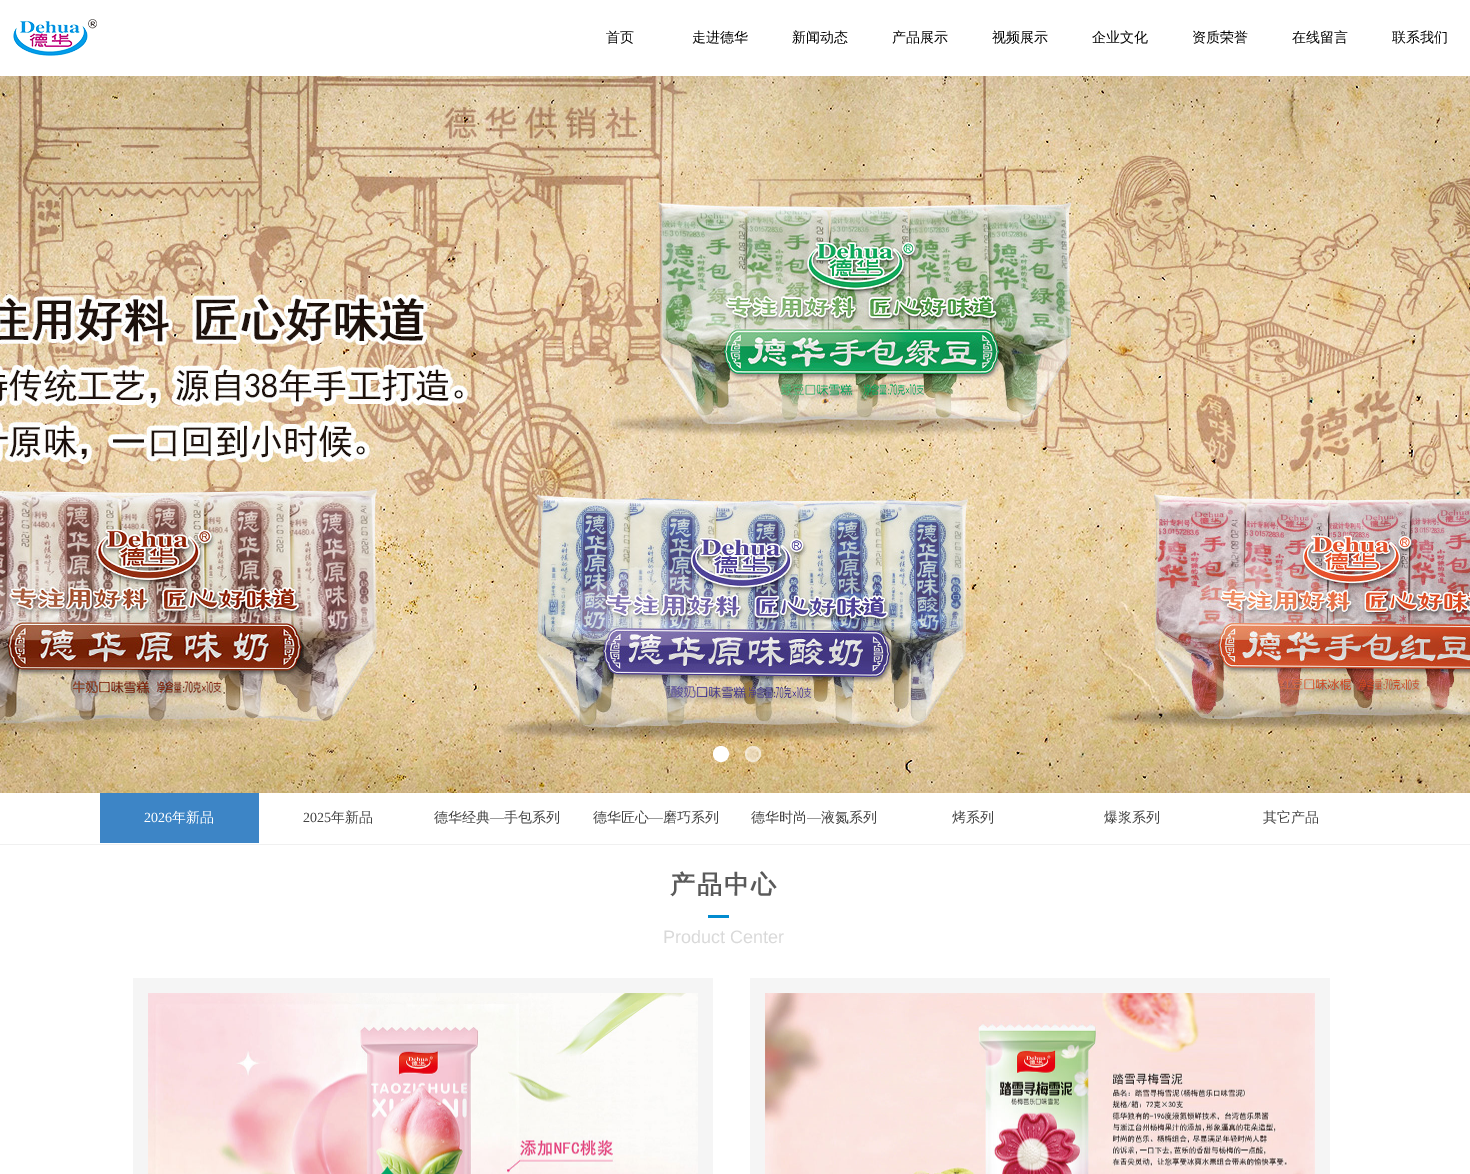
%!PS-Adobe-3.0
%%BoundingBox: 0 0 1470 1174
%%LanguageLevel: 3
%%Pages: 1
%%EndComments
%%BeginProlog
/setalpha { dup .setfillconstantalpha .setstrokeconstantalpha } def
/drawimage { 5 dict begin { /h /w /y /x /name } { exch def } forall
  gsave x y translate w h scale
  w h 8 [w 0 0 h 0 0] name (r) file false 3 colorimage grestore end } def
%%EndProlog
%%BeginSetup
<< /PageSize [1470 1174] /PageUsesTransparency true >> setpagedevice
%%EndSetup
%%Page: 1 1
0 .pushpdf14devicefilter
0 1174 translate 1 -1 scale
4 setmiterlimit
1 setgray
0 0 1470 1174 rectfill
(images/1.raw) 13 19 84 37 drawimage
(images/2.raw) 0 76 1470 717 drawimage
newpath 721 754 7 0 360 arc closepath gsave fill grestore
2 setlinewidth
stroke
0.4 setalpha
newpath 753 754 8 0 360 arc closepath fill
newpath 753 754 7 0 360 arc closepath stroke
1 setalpha
0.239 0.522 0.776 setrgbcolor
100 793 159 50 rectfill
0.941 setgray
0 844 1470 1 rectfill
0.008 0.545 0.812 setrgbcolor
708 915 21 3 rectfill
0.961 setgray
133 978 580 196 rectfill
(images/3.raw) 148 993 550 181 drawimage
750 978 580 196 rectfill
(images/4.raw) 765 993 550 181 drawimage
/WenQuanYiZenHei-Medium [14 0 0 -14 0 0] selectfont
0 setgray
606 42 moveto (首页) show
692 42 moveto (走进德华) show
792 42 moveto (新闻动态) show
892 42 moveto (产品展示) show
992 42 moveto (视频展示) show
1092 42 moveto (企业文化) show
1192 42 moveto (资质荣誉) show
1292 42 moveto (在线留言) show
1392 42 moveto (联系我们) show
/LiberationSerif-Regular [14 0 0 -14 0 0] selectfont
1 setgray
144 822 moveto (2026) show
/WenQuanYiZenHei-Medium [14 0 0 -14 0 0] selectfont
172 822 moveto (年新品) show
/LiberationSerif-Regular [14 0 0 -14 0 0] selectfont
0.263 setgray
303 822 moveto (2025) show
/WenQuanYiZenHei-Medium [14 0 0 -14 0 0] selectfont
331 822 moveto (年新品) show
434 822 moveto (德华经典) show
/LiberationSerif-Regular [14 0 0 -14 0 0] selectfont
490 822 moveto (—) show
/WenQuanYiZenHei-Medium [14 0 0 -14 0 0] selectfont
504 822 moveto (手包系列) show
593 822 moveto (德华匠心) show
/LiberationSerif-Regular [14 0 0 -14 0 0] selectfont
649 822 moveto (—) show
/WenQuanYiZenHei-Medium [14 0 0 -14 0 0] selectfont
663 822 moveto (磨巧系列) show
751 822 moveto (德华时尚) show
/LiberationSerif-Regular [14 0 0 -14 0 0] selectfont
807 822 moveto (—) show
/WenQuanYiZenHei-Medium [14 0 0 -14 0 0] selectfont
821 822 moveto (液氮系列) show
952 822 moveto (烤系列) show
1104 822 moveto (爆浆系列) show
1263 822 moveto (其它产品) show
/WenQuanYiZenHei-Bold [25 0 0 -25 0 0] selectfont
0.353 setgray
670 893 moveto 2 0 (产品中心) ashow
/LiberationSans-Regular [18 0 0 -18 0 0] selectfont
0.851 setgray
663 943 moveto (Product Center) show
.poppdf14devicefilter showpage
%%EOF
